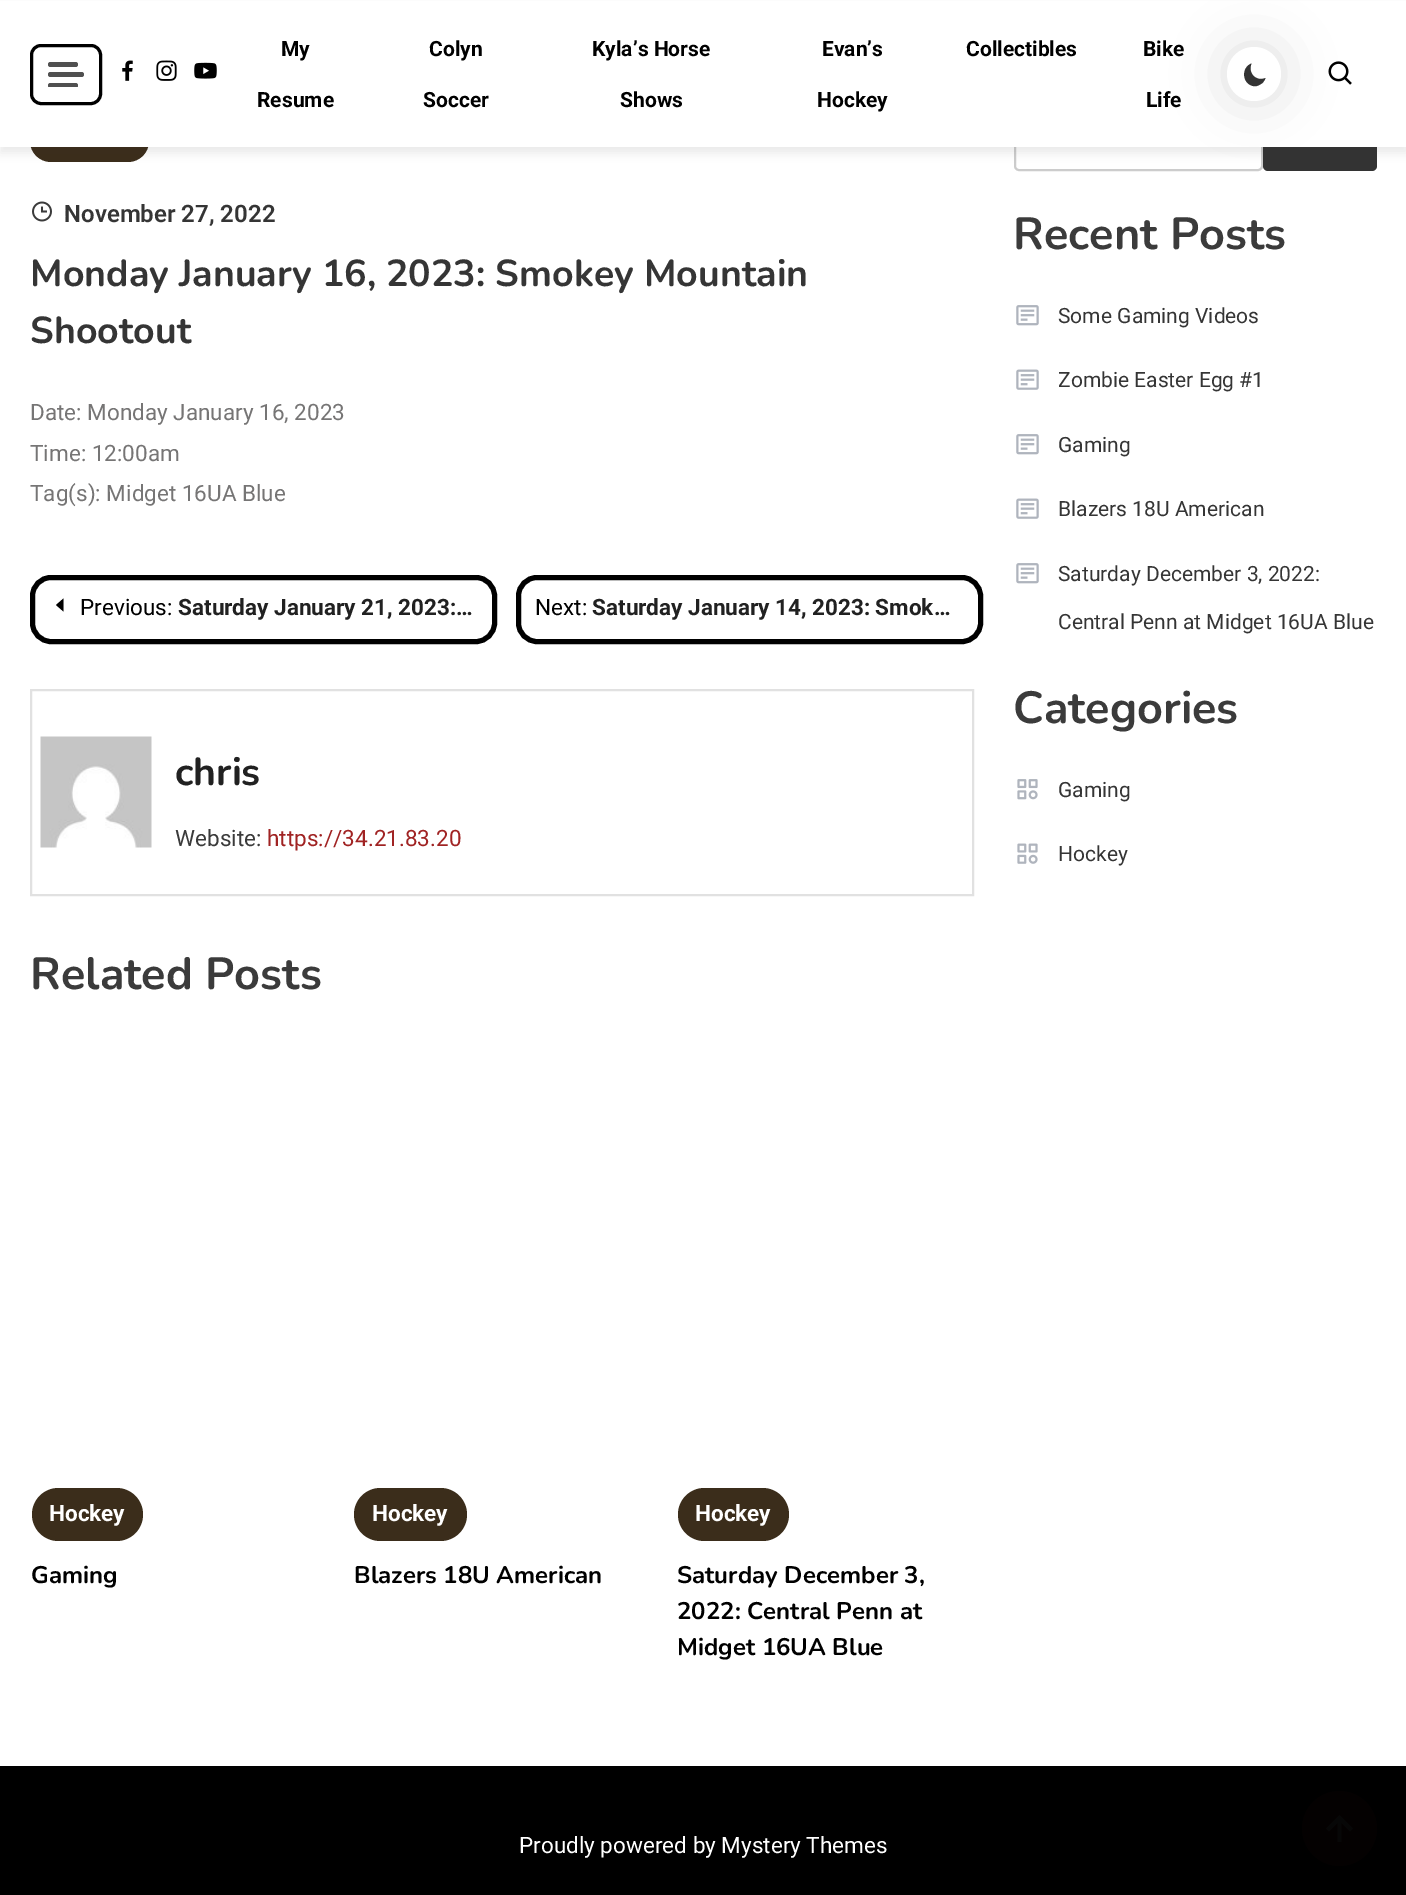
%!PS-Adobe-3.0
%%BoundingBox: 0 0 1406 1895
%%LanguageLevel: 3
%%Pages: 1
%%EndComments
%%BeginProlog
/setalpha { dup .setfillconstantalpha .setstrokeconstantalpha } def
/rrect { 5 dict begin { /r /h /w /y /x } { exch def } forall
  x r add y moveto x w add y 2 copy h add r arct x w add y h add x 1 index r arct
  x y h add x y r arct x y 2 copy exch w add exch r arct closepath end } def
/softshadow { 12 dict begin { /a /b /q /h /w /y /x } { exch def } forall gsave /was 0 def
  9 -2 -9 { dup b mul 4 div /e exch def 1 sub .425 mul 2.718 exch exp 1 add a .99 .min exch div /now exch def
    1 1 now sub 1 was sub div sub setalpha /was now def
    w h .min e 2 mul add 0 gt { x e sub y e sub w e 2 mul add h e 2 mul add
      q e add b .6 mul add w h .min 2 div e add .min 0 .max rrect fill } if } for grestore end } def
/drawimage { 5 dict begin { /h /w /y /x /name } { exch def } forall
  gsave x y translate w h scale
  w h 8 [w 0 0 h 0 0] name (r) file false 3 colorimage grestore end } def
%%EndProlog
%%BeginSetup
<< /PageSize [1406 1895] /PageUsesTransparency true >> setpagedevice
%%EndSetup
%%Page: 1 1
0 .pushpdf14devicefilter
0 1895 translate 1 -1 scale
4 setmiterlimit
1 setgray
0 0 1406 1895 rectfill
0.231 0.176 0.106 setrgbcolor
30 120 119 42 21 rrect fill
0.8 setgray
2 setlinewidth
1015 118 247 52 4 rrect stroke
0.2 setgray
1263 117 114 54 5 rrect fill
0.208 setgray
0 6 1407 147 0 4.5 0.1 softshadow
1 setgray
0 1 1406 146 rectfill
0 setgray
3 setlinewidth
31.5 45.5 69 58 9.5 rrect stroke
0.314 setgray
48 62 30 5 2.5 rrect fill
48 72 36 5 2.5 rrect fill
gsave
48 62 36 25 rectclip
48 83 30 5 2.5 rrect fill
grestore
(images/1.raw) 122 60 11 21 drawimage
(images/2.raw) 156 60 21 21 drawimage
(images/3.raw) 194 62 23 17 drawimage
0 setgray
1227 47 54 54 27 26 0.13 softshadow
1 setgray
newpath 1254 74 27 0 360 arc closepath fill
0.2 setgray
newpath 1265.5 78 moveto 1256 82 1247.5 73 1251.5 63.5 curveto 1241 67.5 1242 83.5 1253 86 curveto 1255.5 86.5 1258 86 1260 84.5 curveto 1262.5 83.5 1264.5 81 1265.5 78 curveto closepath fill
(images/4.raw) 1328 61 24 24 drawimage
(images/5.raw) 32 201 20 21 drawimage
0 setgray
5 setlinewidth
32.5 577.5 462 64 18.5 rrect stroke
newpath 63.5 611.5 moveto 63.5 598.5 lineto 56 605 lineto closepath fill
518.5 577.5 462 64 18.5 rrect stroke
0.882 setgray
2 setlinewidth
31 690 942 205 rectstroke
(images/6.raw) 40 736 112 112 drawimage
0.231 0.176 0.106 setrgbcolor
32 1488 111 53 26.5 rrect fill
354 1488 113 53 26.5 rrect fill
678 1488 111 53 26.5 rrect fill
(images/7.raw) 1016 305 23 21 drawimage
(images/8.raw) 1016 369 23 21 drawimage
(images/7.raw) 1016 434 23 21 drawimage
(images/8.raw) 1016 498 23 21 drawimage
(images/7.raw) 1016 563 23 21 drawimage
(images/9.raw) 1017 779 21 21 drawimage
(images/10.raw) 1017 843 21 21 drawimage
0 setgray
0 1766 1406 129 rectfill
0.016 0.004 0.004 setrgbcolor
newpath 1339.5 1828.5 37.5 0 360 arc closepath fill
0.027 setgray
newpath 1337.5 1823 moveto 1337.5 1842 lineto 1341.5 1842 lineto 1341.5 1823 lineto 1350 1831.5 lineto 1353 1828.5 lineto 1339.5 1815 lineto 1326 1828.5 lineto 1329 1831.5 lineto closepath fill
/Roboto-Bold [21 0 0 -21 0 0] selectfont
0 setgray
281 56 moveto (My) show
257 107 moveto (Resume) show
429 56 moveto (Colyn) show
423 107 moveto (Soccer) show
592 56 moveto (Kyla’s Horse) show
620 107 moveto (Shows) show
822 56 moveto (Evan’s) show
817 107 moveto (Hockey) show
966 56 moveto (Collectibles) show
1143 56 moveto (Bike) show
1146 107 moveto (Life) show
/Roboto-SemiBold [24 0 0 -24 0 0] selectfont
0.208 setgray
64 222 moveto (November 27, 2022) show
/Nunito-Bold [37.5 0 0 -37.5 0 0] selectfont
30 286 moveto (Monday January 16, 2023: Smokey Mountain) show
30 343 moveto (Shootout) show
/Roboto-Regular [22.5 0 0 -22.5 0 0] selectfont
0.463 0.459 0.459 setrgbcolor
30 420 moveto (Date: Monday January 16, 2023) show
30 461 moveto (Time: 12:00am) show
30 501 moveto (Tag\(s\): Midget 16UA Blue) show
0 setgray
80 615 moveto (Previous:) show
/Roboto-Bold [22.5 0 0 -22.5 0 0] selectfont
0.129 setgray
178 615 moveto (Saturday January 21, 2023:…) show
/Roboto-Regular [22.5 0 0 -22.5 0 0] selectfont
0 setgray
535 615 moveto (Next:) show
/Roboto-Bold [22.5 0 0 -22.5 0 0] selectfont
0.129 setgray
592 615 moveto (Saturday January 14, 2023: Smok…) show
/Nunito-Bold [39 0 0 -39 0 0] selectfont
175 785 moveto (chris) show
/Roboto-Regular [22.5 0 0 -22.5 0 0] selectfont
0.231 setgray
175 846 moveto (Website:) show
0.627 0.137 0.137 setrgbcolor
267 846 moveto (https://34.21.83.20) show
/Nunito-Bold [45 0 0 -45 0 0] selectfont
0.231 setgray
30 989 moveto (Related Posts) show
/Roboto-Bold [22.5 0 0 -22.5 0 0] selectfont
1 setgray
49 1521 moveto (Hockey) show
/Nunito-Bold [24 0 0 -24 0 0] selectfont
0 setgray
31 1583 moveto (Gaming) show
/Roboto-Bold [22.5 0 0 -22.5 0 0] selectfont
1 setgray
372 1521 moveto (Hockey) show
/Nunito-Bold [24 0 0 -24 0 0] selectfont
0 setgray
354 1583 moveto (Blazers 18U American) show
/Roboto-Bold [22.5 0 0 -22.5 0 0] selectfont
1 setgray
695 1521 moveto (Hockey) show
/Nunito-Bold [24 0 0 -24 0 0] selectfont
0 setgray
677 1583 moveto (Saturday December 3,) show
677 1619 moveto (2022: Central Penn at) show
677 1655 moveto (Midget 16UA Blue) show
/Nunito-Bold [45 0 0 -45 0 0] selectfont
0.231 setgray
1013 249 moveto (Recent Posts) show
/Roboto-Regular [21 0 0 -21 0 0] selectfont
0.208 setgray
1058 323 moveto (Some Gaming Videos) show
1058 387 moveto (Zombie Easter Egg #1) show
1058 452 moveto (Gaming) show
1058 516 moveto (Blazers 18U American) show
1058 581 moveto (Saturday December 3, 2022:) show
1058 629 moveto (Central Penn at Midget 16UA Blue) show
/Nunito-Bold [45 0 0 -45 0 0] selectfont
0.231 setgray
1013 723 moveto (Categories) show
/Roboto-Regular [21 0 0 -21 0 0] selectfont
0.208 setgray
1058 797 moveto (Gaming) show
1058 861 moveto (Hockey) show
/Roboto-Regular [22.5 0 0 -22.5 0 0] selectfont
1 setgray
519 1853 moveto (Proudly powered by Mystery Themes) show
.poppdf14devicefilter showpage
%%EOF
